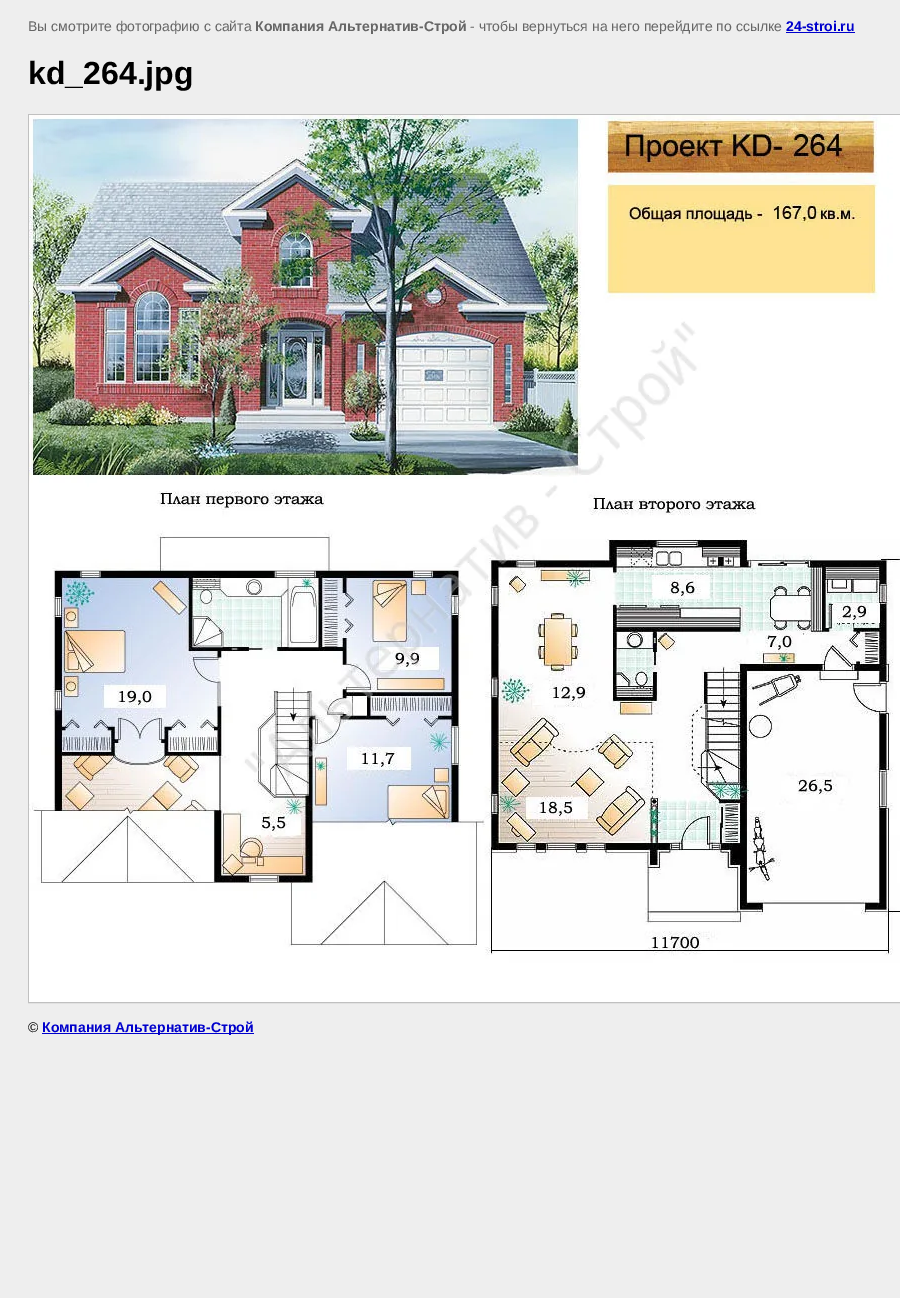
%!PS-Adobe-3.0
%%BoundingBox: 0 0 900 1298
%%LanguageLevel: 3
%%Pages: 1
%%EndComments
%%BeginProlog
/drawimage { 5 dict begin { /h /w /y /x /name } { exch def } forall
  gsave x y translate w h scale
  w h 8 [w 0 0 h 0 0] name (r) file false 3 colorimage grestore end } def
%%EndProlog
%%BeginSetup
<< /PageSize [900 1298] >> setpagedevice
%%EndSetup
%%Page: 1 1
0 1298 translate 1 -1 scale
4 setmiterlimit
0.933 setgray
0 0 900 1298 rectfill
0 0 0.8 setrgbcolor
786 32 69 1 rectfill
0.753 setgray
28.5 114.5 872 888 rectstroke
(images/1.raw) 29 115 871 887 drawimage
0 0 0.8 setrgbcolor
42 1033 212 1 rectfill
/LiberationSans-Regular [14 0 0 -14 0 0] selectfont
0.4 setgray
28 31 moveto (Вы смотрите фотографию с сайта) show
/LiberationSans-Bold [14 0 0 -14 0 0] selectfont
255 31 moveto (Компания Альтернатив-Строй) show
/LiberationSans-Regular [14 0 0 -14 0 0] selectfont
470 31 moveto (- чтобы вернуться на него перейдите по ссылке) show
/LiberationSans-Bold [14 0 0 -14 0 0] selectfont
0 0 0.8 setrgbcolor
786 31 moveto (24-stroi.ru) show
/LiberationSans-Bold [32 0 0 -32 0 0] selectfont
0 setgray
28 84 moveto (kd_264.jpg) show
/LiberationSans-Regular [14 0 0 -14 0 0] selectfont
28 1032 moveto (©) show
/LiberationSans-Bold [14 0 0 -14 0 0] selectfont
0 0 0.8 setrgbcolor
42 1032 moveto (Компания Альтернатив-Строй) show
showpage
%%EOF
